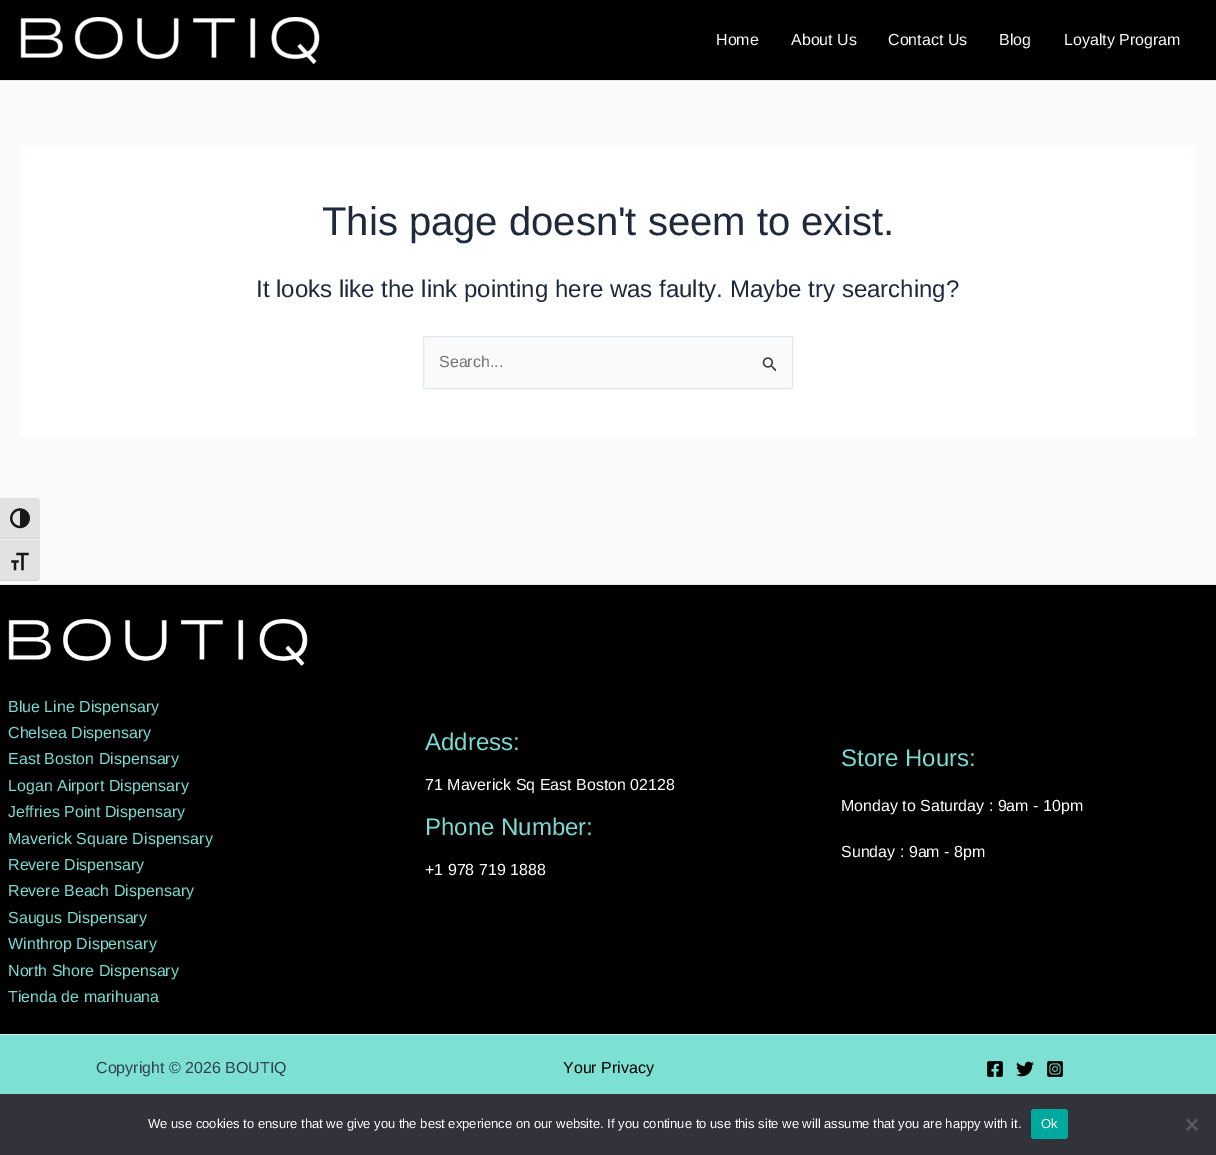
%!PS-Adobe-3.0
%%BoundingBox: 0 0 1216 1155
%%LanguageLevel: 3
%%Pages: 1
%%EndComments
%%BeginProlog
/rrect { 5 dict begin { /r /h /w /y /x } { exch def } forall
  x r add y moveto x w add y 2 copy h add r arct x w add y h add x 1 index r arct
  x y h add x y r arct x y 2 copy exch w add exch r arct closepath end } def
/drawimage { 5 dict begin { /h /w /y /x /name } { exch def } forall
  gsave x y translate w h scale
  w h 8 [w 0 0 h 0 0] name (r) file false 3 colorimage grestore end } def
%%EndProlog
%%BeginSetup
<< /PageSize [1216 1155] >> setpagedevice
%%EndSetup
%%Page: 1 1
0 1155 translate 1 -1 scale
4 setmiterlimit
0.976 0.98 0.984 setrgbcolor
0 0 1216 1155 rectfill
0 setgray
0 0 1216 80 rectfill
0.886 0.91 0.941 setrgbcolor
0 80 1216 1 rectfill
(images/1.raw) 20 17 300 47 drawimage
1 setgray
20 145 1176 292 rectfill
0.98 setgray
423.5 336.5 369 52 1.5 rrect gsave fill grestore
0.886 0.91 0.941 setrgbcolor
stroke
(images/2.raw) 762 357 14 15 drawimage
0 setgray
0 585 1216 449 rectfill
0.886 0.91 0.941 setrgbcolor
0 584 1216 1 rectfill
(images/3.raw) 8 619 300 47 drawimage
0.486 0.878 0.827 setrgbcolor
0 1035 1216 59 rectfill
0.886 0.91 0.941 setrgbcolor
0 1034 1216 1 rectfill
(images/4.raw) 987 1061 16 16 drawimage
(images/5.raw) 1016 1061 18 16 drawimage
(images/6.raw) 1047 1061 16 16 drawimage
0.886 setgray
newpath 0 497 moveto 36 497 lineto 38 497 40 499 40 501 curveto 40 539 lineto 0 539 lineto closepath fill
0.961 setgray
newpath 0 497 moveto 0 498 lineto 36 498 lineto 38 498 40 499 40 501 curveto 40 499 38 497 36 497 curveto closepath fill
0.824 setgray
0 538 40 1 rectfill
(images/7.raw) 10 508 20 21 drawimage
0.886 setgray
newpath 0 539 moveto 40 539 lineto 40 577 lineto 40 579 38 581 36 581 curveto 0 581 lineto closepath fill
0.961 setgray
0 539 40 1 rectfill
0.824 setgray
newpath 0 580 moveto 0 581 lineto 36 581 lineto 38 581 40 579 40 577 curveto 40 579 38 580 36 580 curveto closepath fill
(images/8.raw) 11 552 18 19 drawimage
0.196 0.196 0.227 setrgbcolor
0 1094 1216 61 rectfill
0 0.663 0.616 setrgbcolor
1031 1109 37 30 3 rrect fill
0.349 0.349 0.365 setrgbcolor
newpath 1196.5 1118.5 moveto 1198 1120 lineto 1187.5 1131 lineto 1186 1129.5 lineto closepath fill
newpath 1186 1120 moveto 1187.5 1118.5 lineto 1198 1129.5 lineto 1196.5 1131 lineto closepath fill
/LiberationSans-Regular [16 0 0 -16 0 0] selectfont
0.976 0.98 0.984 setrgbcolor
716 45 moveto (Home) show
791 45 moveto (About Us) show
888 45 moveto (Contact Us) show
999 45 moveto (Blog) show
1064 45 moveto (Loyalty Program) show
/LiberationSans-Regular [40 0 0 -40 0 0] selectfont
0.118 0.161 0.231 setrgbcolor
322 235 moveto (This page doesn't seem to exist.) show
/LiberationSans-Regular [24 0 0 -24 0 0] selectfont
256 297 moveto (It looks like the link pointing here was faulty. Maybe try searching?) show
/LiberationSans-Regular [16 0 0 -16 0 0] selectfont
0.459 setgray
439 367 moveto (Search...) show
0.478 0.859 0.831 setrgbcolor
8 712 moveto (Blue Line Dispensary) show
8 738 moveto (Chelsea Dispensary) show
8 764 moveto (East Boston Dispensary) show
8 791 moveto (Logan Airport Dispensary) show
8 817 moveto (Jeffries Point Dispensary) show
8 844 moveto (Maverick Square Dispensary) show
8 870 moveto (Revere Dispensary) show
8 896 moveto (Revere Beach Dispensary) show
8 923 moveto (Saugus Dispensary) show
8 949 moveto (Winthrop Dispensary) show
8 976 moveto (North Shore Dispensary) show
8 1002 moveto (Tienda de marihuana) show
/LiberationSans-Regular [24 0 0 -24 0 0] selectfont
425 750 moveto (Address:) show
/LiberationSans-Regular [16 0 0 -16 0 0] selectfont
1 setgray
425 790 moveto (71 Maverick Sq East Boston 02128) show
/LiberationSans-Regular [24 0 0 -24 0 0] selectfont
0.478 0.859 0.831 setrgbcolor
425 835 moveto (Phone Number:) show
/LiberationSans-Regular [16 0 0 -16 0 0] selectfont
1 setgray
425 875 moveto (+1 978 719 1888) show
/LiberationSans-Regular [24 0 0 -24 0 0] selectfont
0.478 0.859 0.831 setrgbcolor
841 766 moveto (Store Hours:) show
/LiberationSans-Regular [16 0 0 -16 0 0] selectfont
1 setgray
841 811 moveto (Monday to Saturday : 9am - 10pm) show
841 857 moveto (Sunday : 9am - 8pm) show
0.2 0.255 0.333 setrgbcolor
96 1073 moveto (Copyright © 2026 BOUTIQ) show
0 setgray
563 1073 moveto (Your Privacy) show
/LiberationSans-Regular [13 0 0 -13 0 0] selectfont
1 setgray
148 1128 moveto (We use cookies to ensure that we give you the best experience on our website. If you continue to use this site we will assume that you are happy with it.) show
1041 1128 moveto (Ok) show
showpage
%%EOF
